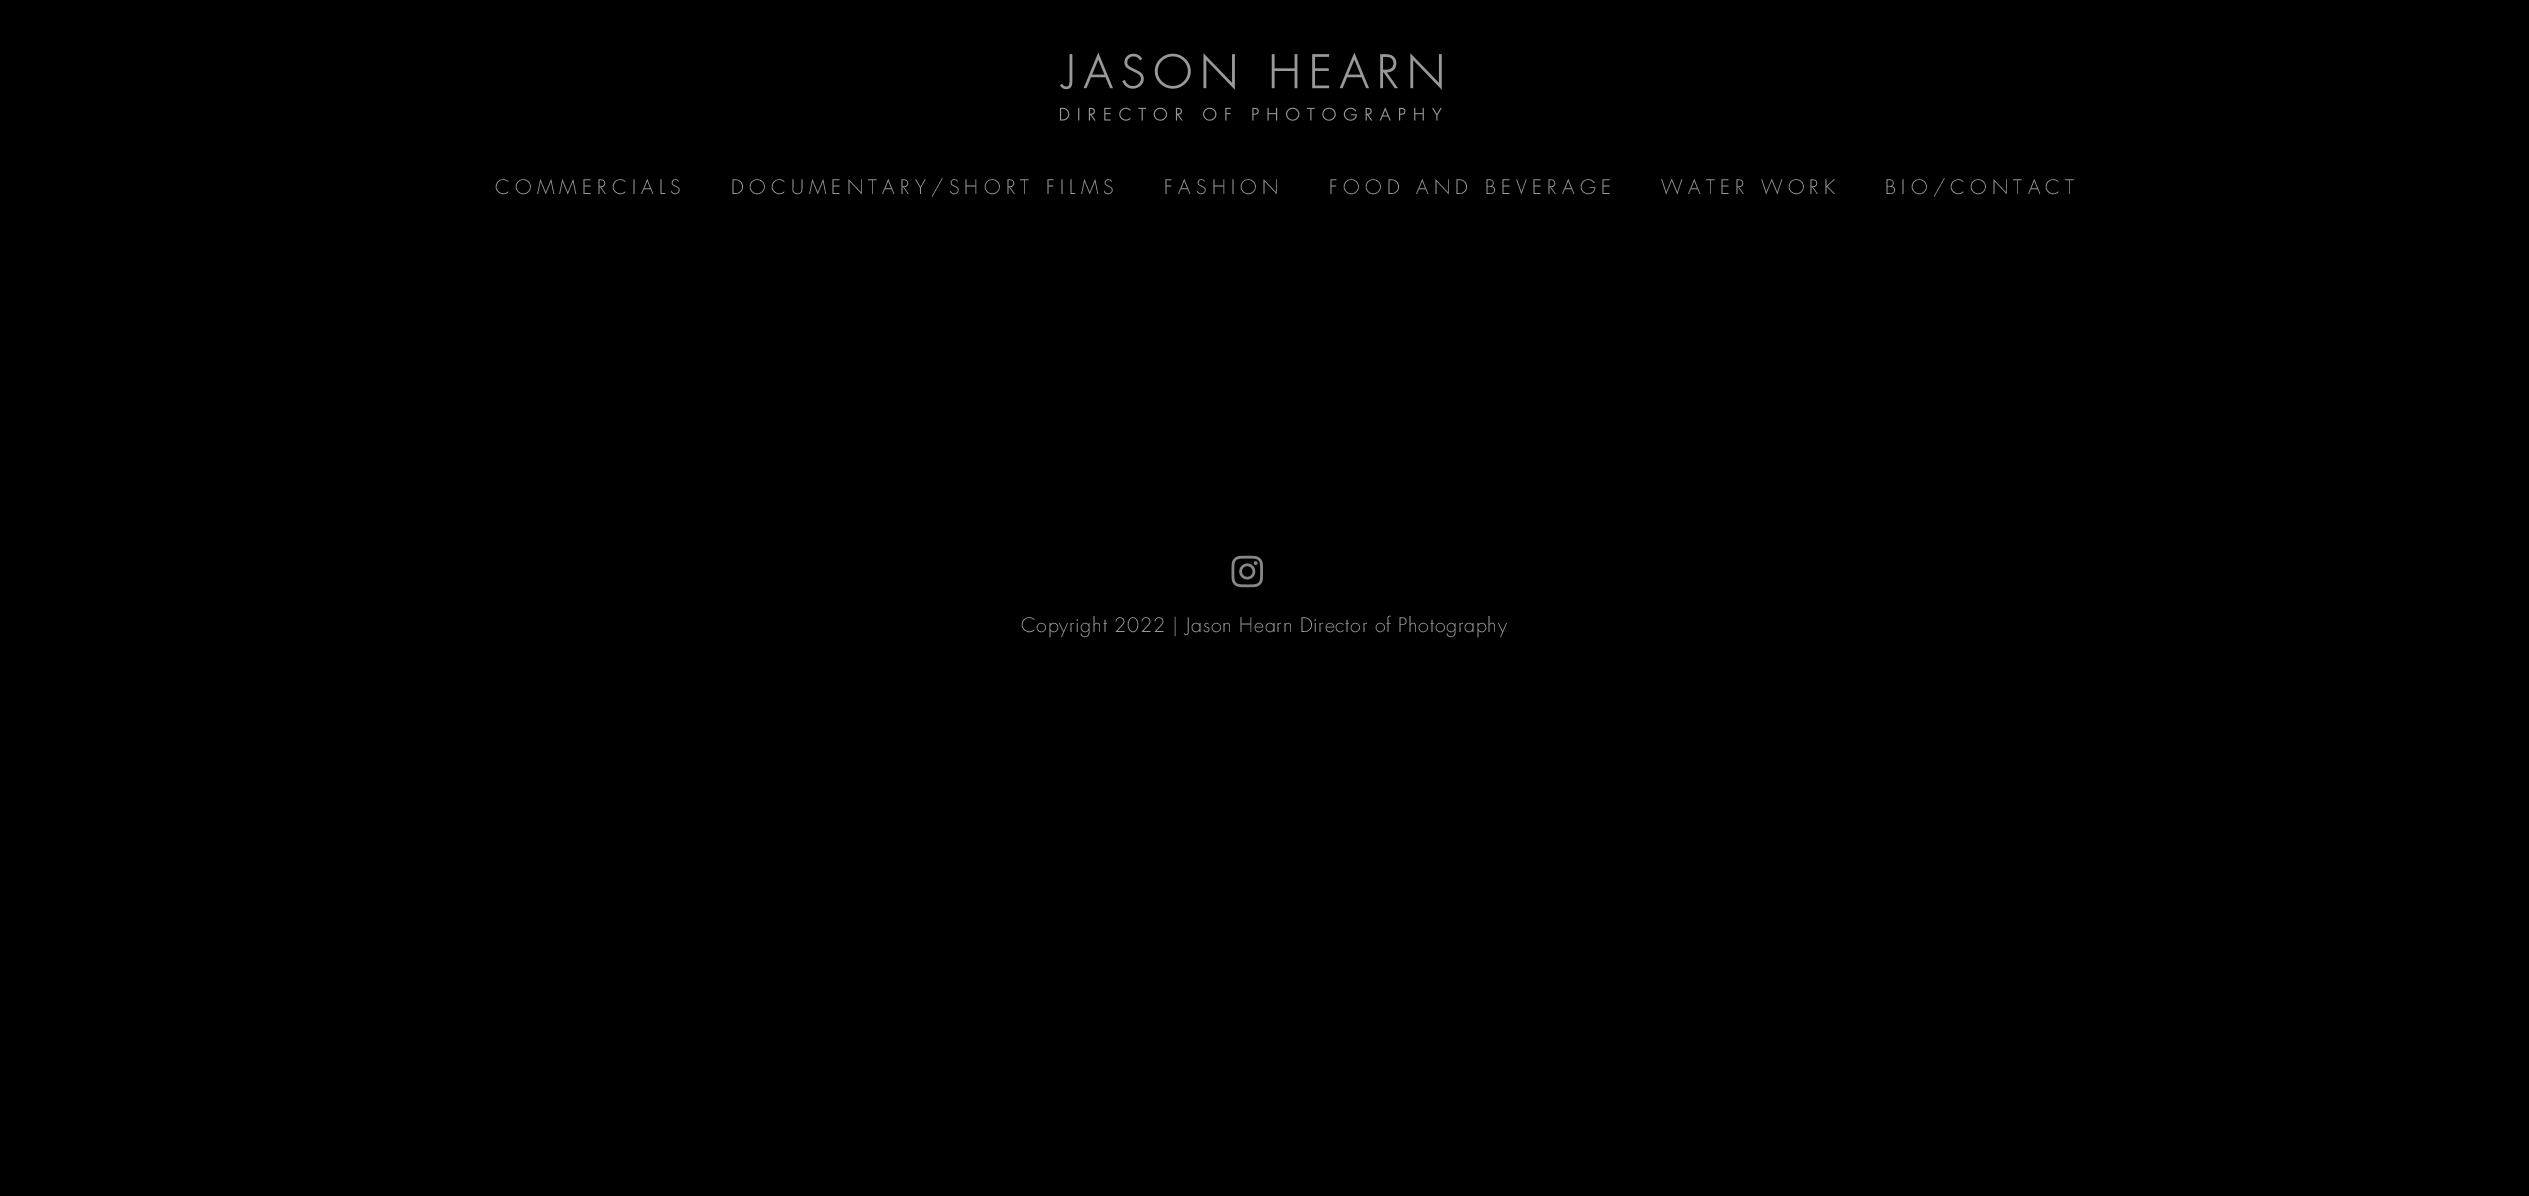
%!PS-Adobe-3.0
%%BoundingBox: 0 0 2529 1196
%%LanguageLevel: 3
%%Pages: 1
%%EndComments
%%BeginProlog
/drawimage { 5 dict begin { /h /w /y /x /name } { exch def } forall
  gsave x y translate w h scale
  w h 8 [w 0 0 h 0 0] name (r) file false 3 colorimage grestore end } def
%%EndProlog
%%BeginSetup
<< /PageSize [2529 1196] >> setpagedevice
%%EndSetup
%%Page: 1 1
0 1196 translate 1 -1 scale
4 setmiterlimit
0 setgray
0 0 2529 1196 rectfill
(images/1.raw) 1059 53 383 68 drawimage
(images/2.raw) 1231 555 32 33 drawimage
/Futura-Light [19.5 0 0 -19.5 0 0] selectfont
0.6 setgray
495 194 moveto 5.25 0 (COMMERCIALS) ashow
731 194 moveto 5.25 0 (DOCUMENTARY/SHORT FILMS) ashow
1164 194 moveto 5.25 0 (FASHION) ashow
1329 194 moveto 5.25 0 (FOOD AND BEVERAGE) ashow
1661 194 moveto 5.25 0 (WATER WORK) ashow
1885 194 moveto 5.25 0 (BIO/CONTACT) ashow
1021 632 moveto 0.75 0 (Copyright 2022 | Jason Hearn Director of Photography) ashow
showpage
%%EOF
